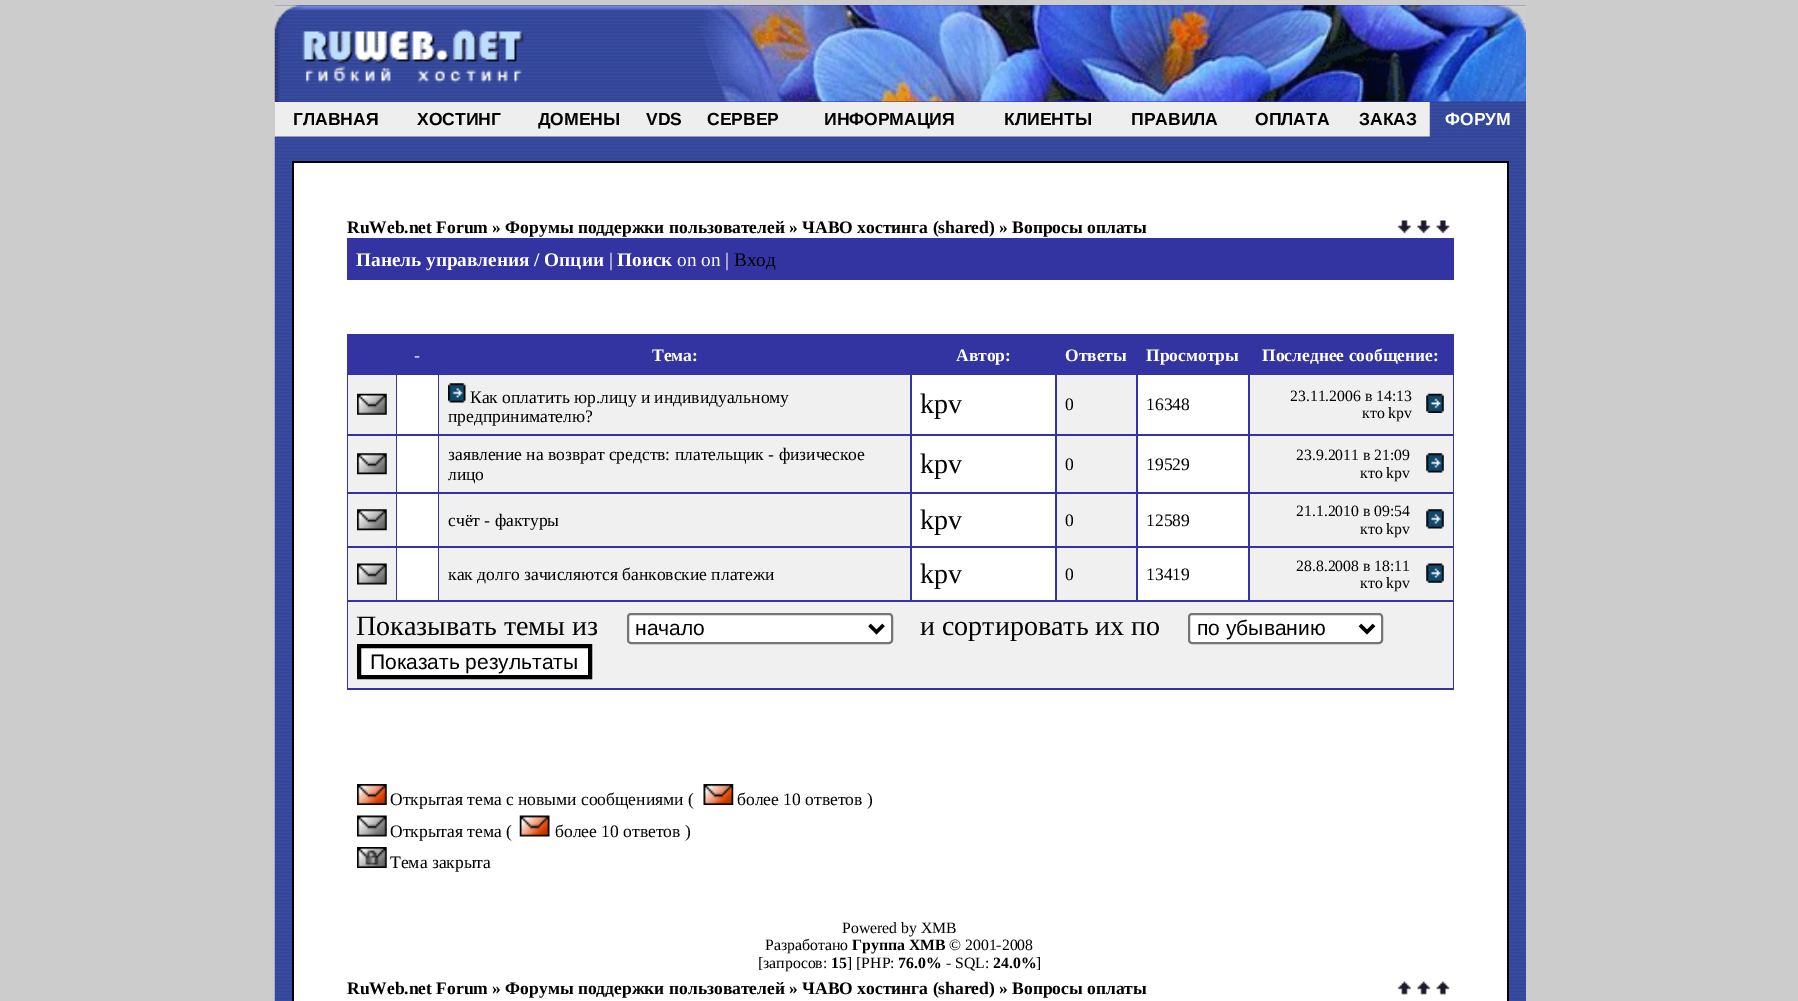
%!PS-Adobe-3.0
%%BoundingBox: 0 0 1798 1001
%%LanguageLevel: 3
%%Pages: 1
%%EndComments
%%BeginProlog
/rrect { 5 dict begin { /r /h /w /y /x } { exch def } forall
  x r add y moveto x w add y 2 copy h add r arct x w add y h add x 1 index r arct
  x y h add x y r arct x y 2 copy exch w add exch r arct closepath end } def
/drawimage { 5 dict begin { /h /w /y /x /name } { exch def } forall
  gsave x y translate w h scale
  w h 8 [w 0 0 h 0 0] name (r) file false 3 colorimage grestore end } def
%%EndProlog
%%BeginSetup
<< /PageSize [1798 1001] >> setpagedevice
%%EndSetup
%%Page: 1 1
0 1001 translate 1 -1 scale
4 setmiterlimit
0.8 setgray
0 0 1798 1001 rectfill
0.2 0.2 0.635 setrgbcolor
275 5 1251 97 rectfill
0.933 setgray
275 102 1251 35 rectfill
(images/2.raw) 1429 101 97 36 drawimage
(images/1.raw) 274 5 1252 97 drawimage
(images/3.raw) 274 136 1252 865 drawimage
0 setgray
292 161 1217 840 rectfill
1 setgray
294 163 1213 838 rectfill
(images/4.raw) 1397 220 53 14 drawimage
0.2 0.2 0.635 setrgbcolor
347 238 1107 42 rectfill
347 334 1107 356 rectfill
0.941 setgray
348 375 48 59 rectfill
(images/5.raw) 357 393 30 22 drawimage
1 setgray
397 375 41 59 rectfill
0.941 setgray
439 375 471 59 rectfill
(images/6.raw) 448 383 18 20 drawimage
1 setgray
912 375 143 59 rectfill
0.941 setgray
1057 375 79 59 rectfill
1 setgray
1138 375 110 59 rectfill
0.941 setgray
1250 375 203 59 rectfill
(images/7.raw) 1426 393 18 20 drawimage
348 436 48 56 rectfill
(images/8.raw) 357 453 30 22 drawimage
1 setgray
397 436 41 56 rectfill
0.941 setgray
439 436 471 56 rectfill
1 setgray
912 436 143 56 rectfill
0.941 setgray
1057 436 79 56 rectfill
1 setgray
1138 436 110 56 rectfill
0.941 setgray
1250 436 203 56 rectfill
(images/9.raw) 1426 453 18 20 drawimage
348 494 48 52 rectfill
(images/8.raw) 357 509 30 22 drawimage
1 setgray
397 494 41 52 rectfill
0.941 setgray
439 494 471 52 rectfill
1 setgray
912 494 143 52 rectfill
0.941 setgray
1057 494 79 52 rectfill
1 setgray
1138 494 110 52 rectfill
0.941 setgray
1250 494 203 52 rectfill
(images/9.raw) 1426 509 18 20 drawimage
348 548 48 52 rectfill
(images/10.raw) 357 563 30 22 drawimage
1 setgray
397 548 41 52 rectfill
0.941 setgray
439 548 471 52 rectfill
1 setgray
912 548 143 52 rectfill
0.941 setgray
1057 548 79 52 rectfill
1 setgray
1138 548 110 52 rectfill
0.941 setgray
1250 548 203 52 rectfill
(images/11.raw) 1426 563 18 20 drawimage
348 602 1105 86 rectfill
1 setgray
628 614 264 29 3 rrect gsave fill grestore
0.463 setgray
2 setlinewidth
stroke
0 setgray
3.5 setlinewidth
newpath 869.5 625 moveto 876.5 632 lineto 883.5 625 lineto stroke
1 setgray
1189 614 193 29 3 rrect gsave fill grestore
0.463 setgray
2 setlinewidth
stroke
0 setgray
3.5 setlinewidth
newpath 1360 625 moveto 1367 632 lineto 1374 625 lineto stroke
1 setgray
newpath 359 646 moveto 590 646 lineto 590 677 lineto 359 677 lineto closepath gsave fill grestore
0 setgray
4 setlinewidth
stroke
(images/12.raw) 357 784 30 21 drawimage
(images/13.raw) 703 784 31 21 drawimage
(images/14.raw) 357 815 30 22 drawimage
(images/15.raw) 519 815 31 22 drawimage
(images/16.raw) 357 847 30 21 drawimage
(images/17.raw) 1397 981 53 14 drawimage
/LiberationSans-Bold [17.5 0 0 -17.5 0 0] selectfont
293 125 moveto (ГЛАВНАЯ) show
417 125 moveto (ХОСТИНГ) show
538 125 moveto (ДОМЕНЫ) show
646 125 moveto (VDS) show
707 125 moveto (СЕРВЕР) show
824 125 moveto (ИНФОРМАЦИЯ) show
1004 125 moveto (КЛИЕНТЫ) show
1131 125 moveto (ПРАВИЛА) show
1255 125 moveto (ОПЛАТА) show
1359 125 moveto (ЗАКАЗ) show
1 setgray
1445 125 moveto (ФОРУМ) show
/LiberationSerif-Bold [17.5 0 0 -17.5 0 0] selectfont
0 setgray
347 233 moveto (RuWeb.net Forum » Форумы поддержки пользователей » ЧАВО хостинга \(shared\) » Вопросы оплаты) show
/LiberationSerif-Bold [19.25 0 0 -19.25 0 0] selectfont
1 setgray
356 266 moveto (Панель управления / Опции) show
/LiberationSerif-Regular [19.25 0 0 -19.25 0 0] selectfont
609 266 moveto (|) show
/LiberationSerif-Bold [19.25 0 0 -19.25 0 0] selectfont
617 266 moveto (Поиск) show
/LiberationSerif-Regular [19.25 0 0 -19.25 0 0] selectfont
677 266 moveto (on on |) show
0 setgray
734 266 moveto (Вход) show
/LiberationSerif-Bold [17.5 0 0 -17.5 0 0] selectfont
1 setgray
414 361 moveto (-) show
652 361 moveto (Тема:) show
956 361 moveto (Автор:) show
1065 361 moveto (Ответы) show
1146 361 moveto (Просмотры) show
1262 361 moveto (Последнее сообщение:) show
/LiberationSerif-Regular [17.5 0 0 -17.5 0 0] selectfont
0 setgray
470 403 moveto (Как оплатить юр.лицу и индивидуальному) show
448 422 moveto (предпринимателю?) show
/LiberationSerif-Regular [28 0 0 -28 0 0] selectfont
920 413 moveto (kpv) show
/LiberationSerif-Regular [17.5 0 0 -17.5 0 0] selectfont
1065 410 moveto (0) show
1146 410 moveto (16348) show
/LiberationSerif-Regular [15.75 0 0 -15.75 0 0] selectfont
1290 401 moveto (23.11.2006 в 14:13) show
1362 418 moveto (кто kpv) show
/LiberationSerif-Regular [17.5 0 0 -17.5 0 0] selectfont
448 460 moveto (заявление на возврат средств: плательщик - физическое) show
448 480 moveto (лицо) show
/LiberationSerif-Regular [28 0 0 -28 0 0] selectfont
920 473 moveto (kpv) show
/LiberationSerif-Regular [17.5 0 0 -17.5 0 0] selectfont
1065 470 moveto (0) show
1146 470 moveto (19529) show
/LiberationSerif-Regular [15.75 0 0 -15.75 0 0] selectfont
1296 460 moveto (23.9.2011 в 21:09) show
1360 478 moveto (кто kpv) show
/LiberationSerif-Regular [17.5 0 0 -17.5 0 0] selectfont
448 526 moveto (счёт - фактуры) show
/LiberationSerif-Regular [28 0 0 -28 0 0] selectfont
920 529 moveto (kpv) show
/LiberationSerif-Regular [17.5 0 0 -17.5 0 0] selectfont
1065 526 moveto (0) show
1146 526 moveto (12589) show
/LiberationSerif-Regular [15.75 0 0 -15.75 0 0] selectfont
1296 516 moveto (21.1.2010 в 09:54) show
1360 534 moveto (кто kpv) show
/LiberationSerif-Regular [17.5 0 0 -17.5 0 0] selectfont
448 580 moveto (как долго зачисляются банковские платежи) show
/LiberationSerif-Regular [28 0 0 -28 0 0] selectfont
920 583 moveto (kpv) show
/LiberationSerif-Regular [17.5 0 0 -17.5 0 0] selectfont
1065 580 moveto (0) show
1146 580 moveto (13419) show
/LiberationSerif-Regular [15.75 0 0 -15.75 0 0] selectfont
1296 571 moveto (28.8.2008 в 18:11) show
1360 588 moveto (кто kpv) show
/LiberationSerif-Regular [28 0 0 -28 0 0] selectfont
356 635 moveto (Показывать темы из) show
/LiberationSans-Regular [21 0 0 -21 0 0] selectfont
635 635 moveto (начало) show
/LiberationSerif-Regular [28 0 0 -28 0 0] selectfont
920 635 moveto (и сортировать их по) show
/LiberationSans-Regular [21 0 0 -21 0 0] selectfont
1197 635 moveto (по убыванию) show
370 669 moveto (Показать результаты) show
/LiberationSerif-Regular [17.5 0 0 -17.5 0 0] selectfont
390 805 moveto (Открытая тема с новыми сообщениями \() show
737 805 moveto (более 10 ответов \)) show
390 837 moveto (Открытая тема \() show
555 837 moveto (более 10 ответов \)) show
390 868 moveto (Тема закрыта) show
/LiberationSerif-Regular [15.75 0 0 -15.75 0 0] selectfont
842 933 moveto (Powered by XMB) show
765 950 moveto (Разработано) show
/LiberationSerif-Bold [15.75 0 0 -15.75 0 0] selectfont
852 950 moveto (Группа XMB) show
/LiberationSerif-Regular [15.75 0 0 -15.75 0 0] selectfont
949 950 moveto (© 2001-2008) show
758 968 moveto ([запросов:) show
/LiberationSerif-Bold [15.75 0 0 -15.75 0 0] selectfont
831 968 moveto (15) show
/LiberationSerif-Regular [15.75 0 0 -15.75 0 0] selectfont
847 968 moveto (] [PHP:) show
/LiberationSerif-Bold [15.75 0 0 -15.75 0 0] selectfont
898 968 moveto (76.0%) show
/LiberationSerif-Regular [15.75 0 0 -15.75 0 0] selectfont
946 968 moveto (- SQL:) show
/LiberationSerif-Bold [15.75 0 0 -15.75 0 0] selectfont
993 968 moveto (24.0%) show
/LiberationSerif-Regular [15.75 0 0 -15.75 0 0] selectfont
1036 968 moveto (]) show
/LiberationSerif-Bold [17.5 0 0 -17.5 0 0] selectfont
347 994 moveto (RuWeb.net Forum » Форумы поддержки пользователей » ЧАВО хостинга \(shared\) » Вопросы оплаты) show
showpage
%%EOF
